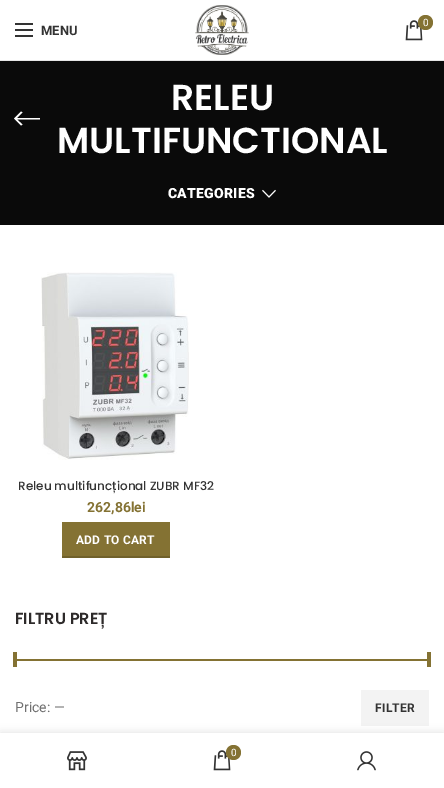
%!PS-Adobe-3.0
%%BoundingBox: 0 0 444 788
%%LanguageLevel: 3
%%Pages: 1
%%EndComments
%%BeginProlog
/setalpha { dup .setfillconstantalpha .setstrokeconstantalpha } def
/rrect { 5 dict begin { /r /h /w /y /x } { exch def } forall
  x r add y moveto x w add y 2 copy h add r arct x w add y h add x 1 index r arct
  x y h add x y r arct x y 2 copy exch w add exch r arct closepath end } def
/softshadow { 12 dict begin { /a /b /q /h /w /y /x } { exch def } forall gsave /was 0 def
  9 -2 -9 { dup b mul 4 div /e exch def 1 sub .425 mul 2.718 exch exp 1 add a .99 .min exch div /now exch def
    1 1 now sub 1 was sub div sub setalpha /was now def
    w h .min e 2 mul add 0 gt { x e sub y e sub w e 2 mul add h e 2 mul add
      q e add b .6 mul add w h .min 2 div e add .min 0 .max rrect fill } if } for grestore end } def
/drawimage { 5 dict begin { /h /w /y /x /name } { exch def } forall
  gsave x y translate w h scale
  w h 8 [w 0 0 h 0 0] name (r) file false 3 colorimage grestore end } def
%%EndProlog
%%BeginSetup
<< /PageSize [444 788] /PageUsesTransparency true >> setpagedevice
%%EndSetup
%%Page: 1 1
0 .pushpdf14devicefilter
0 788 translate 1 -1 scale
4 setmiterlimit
1 setgray
0 0 444 788 rectfill
0.902 setgray
0 60 444 1 rectfill
(images/1.raw) 195 5 54 50 drawimage
(images/2.raw) 405 20 18 21 drawimage
0.518 0.447 0.2 setrgbcolor
newpath 425.5 22.5 7.5 0 360 arc closepath fill
0.2 setgray
15 29 18 2 rectfill
15 23 18 2 rectfill
15 35 18 2 rectfill
0.039 setgray
0 61 444 164 rectfill
1 setgray
newpath 40 118 moveto 40 119.5 lineto 17 119.5 lineto 22.5 124.5 lineto 21 125.5 lineto 14 118.5 lineto 21 111.5 lineto 22.5 112.5 lineto 17 118 lineto closepath fill
(images/3.raw) 262 189 14 9 drawimage
(images/4.raw) 41 272 148 188 drawimage
0.518 0.447 0.2 setrgbcolor
62 522 108 34 rectfill
0.439 0.38 0.169 setrgbcolor
62 556 108 2 rectfill
0.518 0.447 0.2 setrgbcolor
15 659 414 2 rectfill
13 652 4 15 rectfill
427 652 4 15 rectfill
0.953 setgray
361 690 68 36 rectfill
0 setgray
0 733 444 55 0 4.5 0.12 softshadow
1 setgray
0 733 444 55 rectfill
(images/5.raw) 67 751 20 20 drawimage
(images/2.raw) 213 750 18 21 drawimage
0.518 0.447 0.2 setrgbcolor
newpath 233.5 752.5 7.5 0 360 arc closepath fill
(images/6.raw) 357 751 19 20 drawimage
/Roboto-Regular [10 0 0 -10 0 0] selectfont
1 setgray
423 26 moveto (0) show
/Roboto-Bold [13 0 0 -13 0 0] selectfont
0.2 setgray
41 35 moveto (MENU) show
/Poppins-SemiBold [36 0 0 -36 0 0] selectfont
1 setgray
171 110 moveto (RELEU) show
57 153 moveto (MULTIFUNCTIONAL) show
/Roboto-Black [14 0 0 -14 0 0] selectfont
168 198 moveto 0.25 0 (CATEGORIES) ashow
/Poppins-Medium [12 0 0 -12 0 0] selectfont
0.2 setgray
18 490 moveto (Releu multifuncțional ZUBR MF32) show
/Roboto-Bold [14 0 0 -14 0 0] selectfont
0.518 0.447 0.2 setrgbcolor
87 512 moveto (262,86lei) show
/Roboto-Bold [12 0 0 -12 0 0] selectfont
1 setgray
76 544 moveto 0.25 0 (ADD TO CART) ashow
/Poppins-SemiBold [16 0 0 -16 0 0] selectfont
0.176 0.165 0.165 setrgbcolor
15 624 moveto (FILTRU PREȚ) show
/Roboto-Regular [14 0 0 -14 0 0] selectfont
0.443 setgray
15 712 moveto (Price: —) show
/Roboto-Bold [12 0 0 -12 0 0] selectfont
0.2 setgray
375 712 moveto 0.25 0 (FILTER) ashow
/Roboto-Regular [10 0 0 -10 0 0] selectfont
1 setgray
231 756 moveto (0) show
.poppdf14devicefilter showpage
%%EOF
